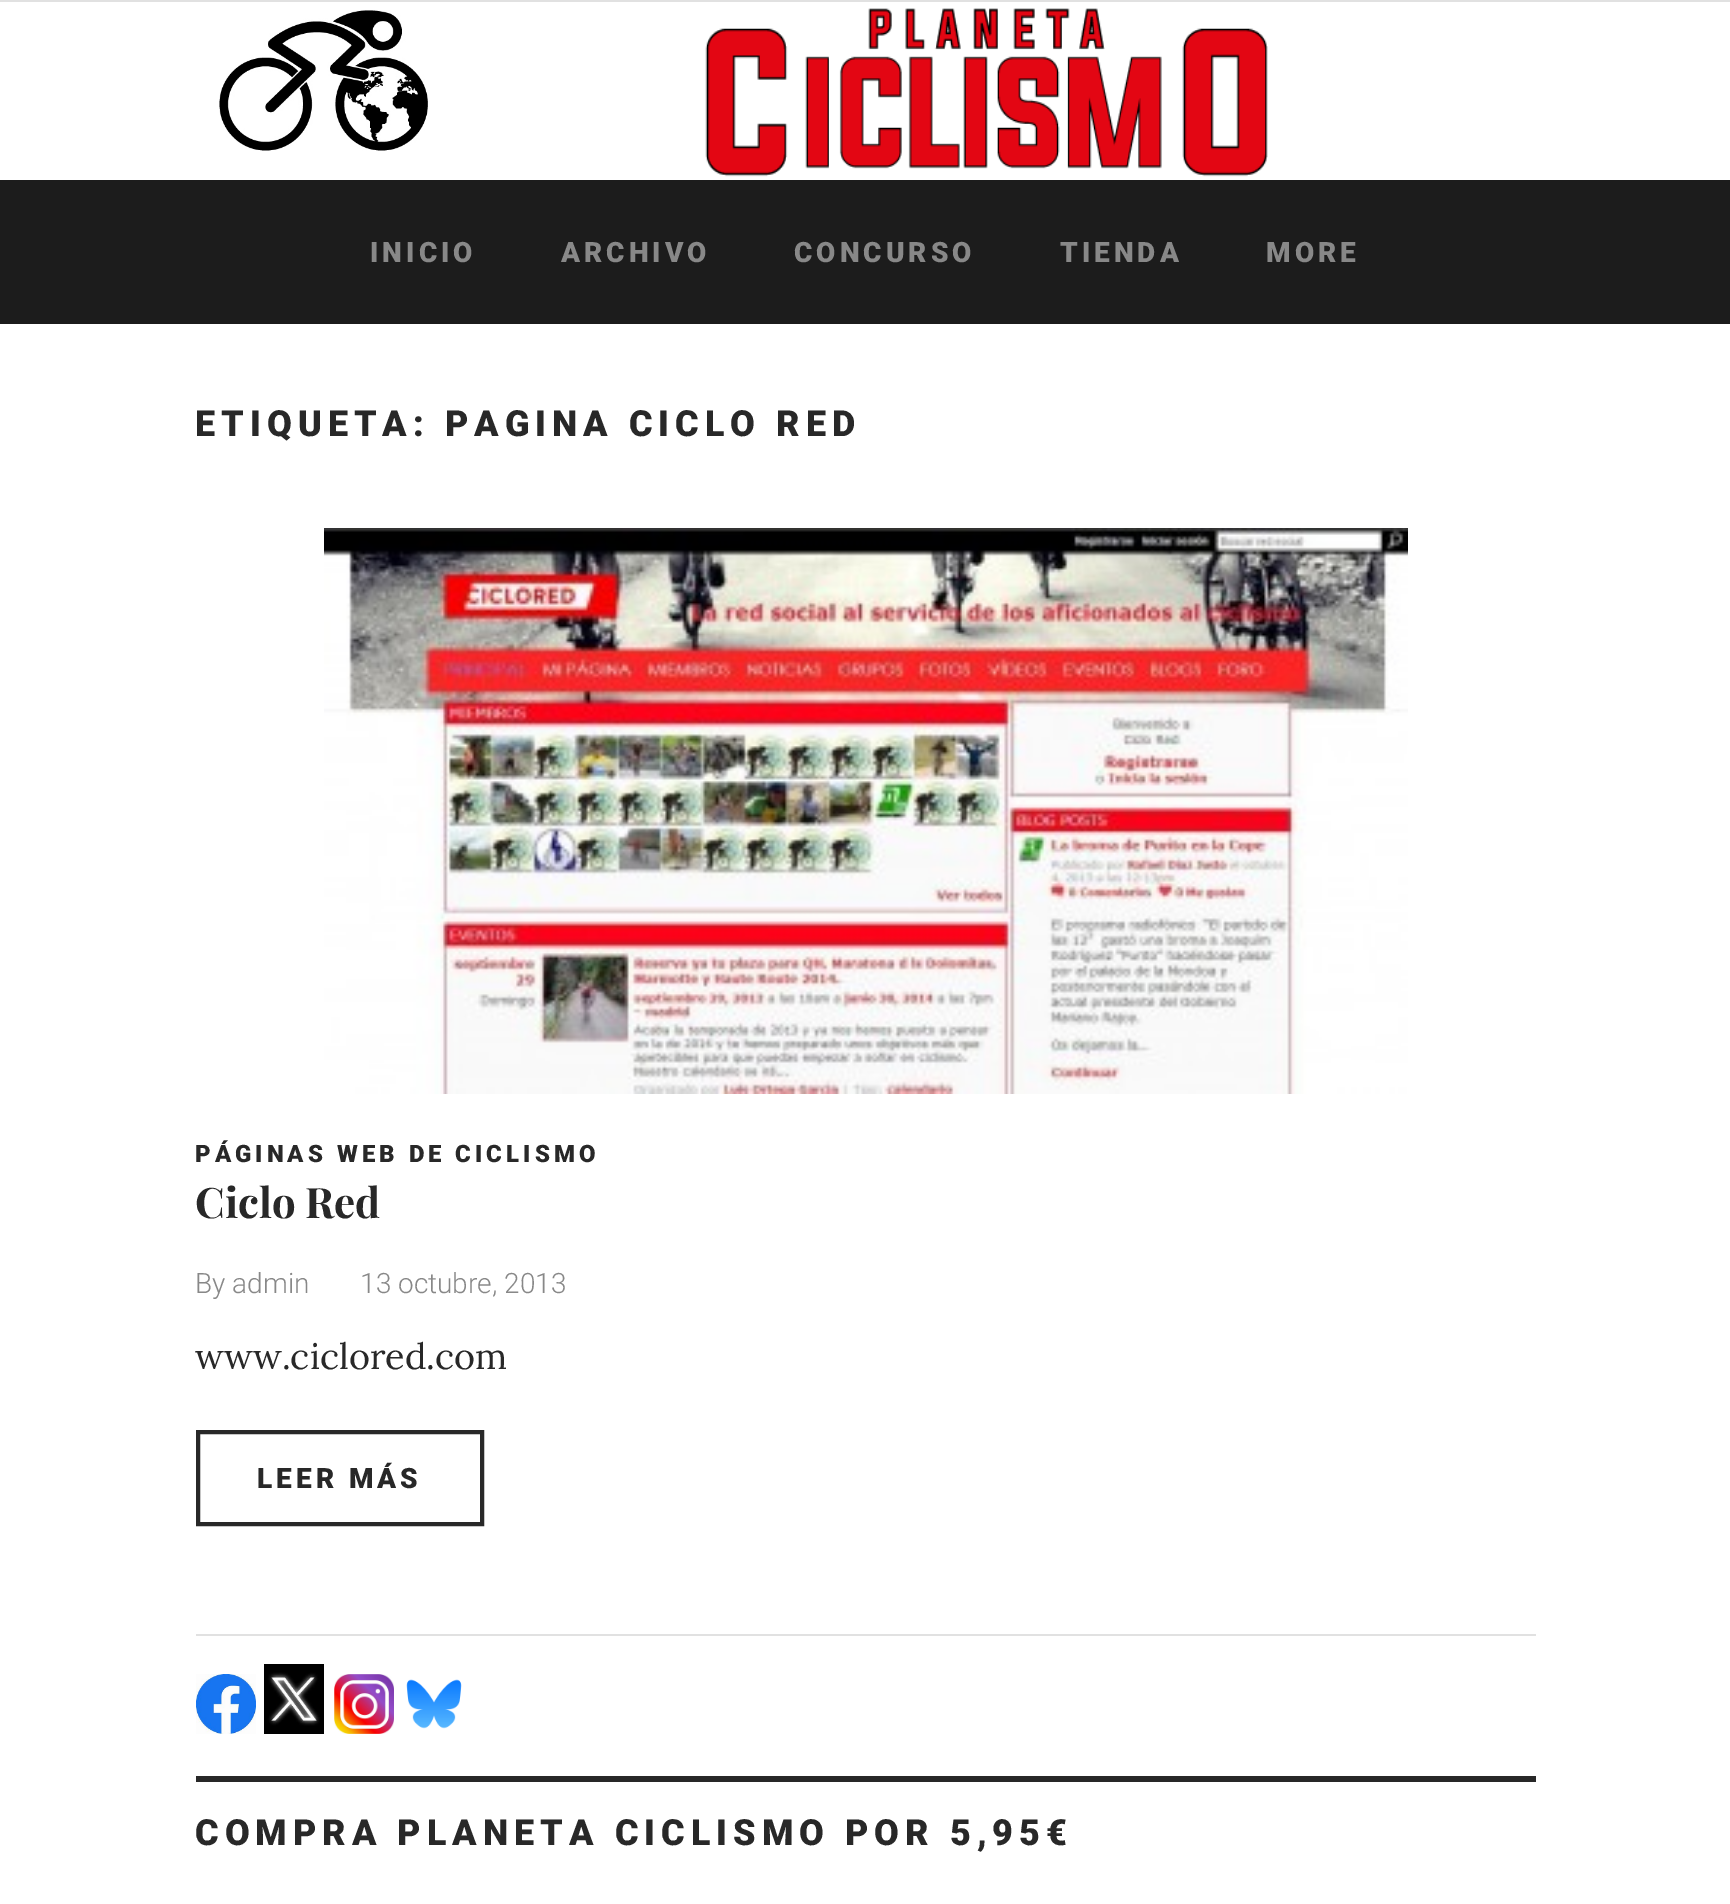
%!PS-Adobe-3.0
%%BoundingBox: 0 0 1730 1904
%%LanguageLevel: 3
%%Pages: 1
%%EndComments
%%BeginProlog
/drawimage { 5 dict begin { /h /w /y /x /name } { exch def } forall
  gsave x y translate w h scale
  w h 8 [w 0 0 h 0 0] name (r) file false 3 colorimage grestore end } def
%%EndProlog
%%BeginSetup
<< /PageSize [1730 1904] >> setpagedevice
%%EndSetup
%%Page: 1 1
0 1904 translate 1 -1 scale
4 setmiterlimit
1 setgray
0 0 1730 1904 rectfill
0.882 setgray
0 0 1730 2 rectfill
(images/1.raw) 219 10 209 141 drawimage
(images/2.raw) 705 8 563 169 drawimage
0.11 setgray
0 180 1730 144 rectfill
0.882 setgray
196 1634 1340 2 rectfill
(images/3.raw) 324 528 1084 566 drawimage
0.157 setgray
4 setlinewidth
198 1432 284 92 rectstroke
(images/4.raw) 196 1674 60 60 drawimage
(images/5.raw) 264 1664 60 70 drawimage
(images/6.raw) 334 1674 60 60 drawimage
(images/7.raw) 406 1679 56 50 drawimage
196 1776 1340 6 rectfill
/Roboto-Black [28 0 0 -28 0 0] selectfont
0.533 setgray
370 262 moveto 4 0 (INICIO) ashow
561 262 moveto 4 0 (ARCHIVO) ashow
794 262 moveto 4 0 (CONCURSO) ashow
1060 262 moveto 4 0 (TIENDA) ashow
1266 262 moveto 4 0 (MORE) ashow
/Roboto-Black [36 0 0 -36 0 0] selectfont
0.157 setgray
195 436 moveto 6 0 (ETIQUETA: PAGINA CICLO RED) ashow
/Roboto-Black [24 0 0 -24 0 0] selectfont
195 1162 moveto 4 0 (PÁGINAS WEB DE CICLISMO) ashow
/PlayfairDisplay-Bold [42 0 0 -42 0 0] selectfont
195 1218 moveto (Ciclo Red) show
/Roboto-Light [28 0 0 -28 0 0] selectfont
0.533 setgray
195 1293 moveto (By admin) show
360 1293 moveto (13 octubre, 2013) show
/Lora-Regular [36 0 0 -36 0 0] selectfont
0.157 setgray
195 1369 moveto (www.ciclored.com) show
/Roboto-Black [28 0 0 -28 0 0] selectfont
257 1488 moveto 4 0 (LEER MÁS) ashow
/Roboto-Black [36 0 0 -36 0 0] selectfont
195 1845 moveto 6 0 (COMPRA PLANETA CICLISMO POR 5,95€) ashow
showpage
%%EOF
